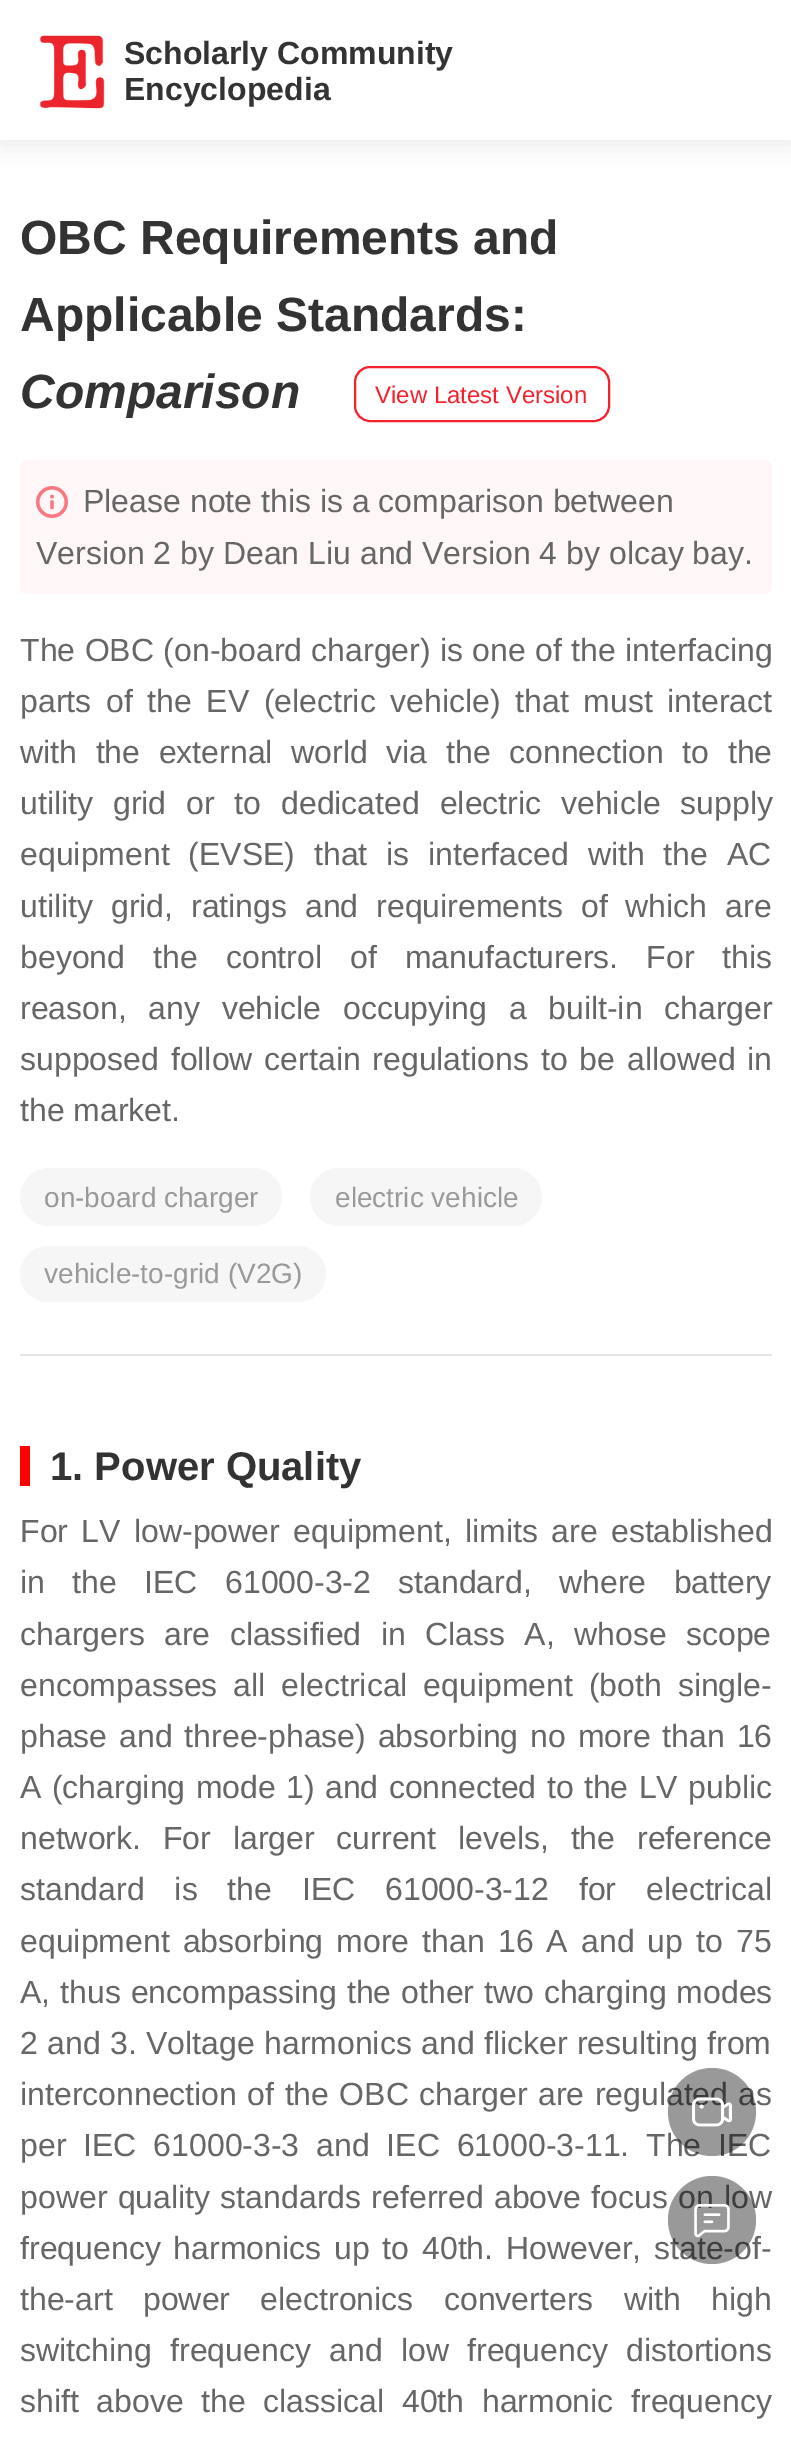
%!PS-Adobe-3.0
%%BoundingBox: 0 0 791 2442
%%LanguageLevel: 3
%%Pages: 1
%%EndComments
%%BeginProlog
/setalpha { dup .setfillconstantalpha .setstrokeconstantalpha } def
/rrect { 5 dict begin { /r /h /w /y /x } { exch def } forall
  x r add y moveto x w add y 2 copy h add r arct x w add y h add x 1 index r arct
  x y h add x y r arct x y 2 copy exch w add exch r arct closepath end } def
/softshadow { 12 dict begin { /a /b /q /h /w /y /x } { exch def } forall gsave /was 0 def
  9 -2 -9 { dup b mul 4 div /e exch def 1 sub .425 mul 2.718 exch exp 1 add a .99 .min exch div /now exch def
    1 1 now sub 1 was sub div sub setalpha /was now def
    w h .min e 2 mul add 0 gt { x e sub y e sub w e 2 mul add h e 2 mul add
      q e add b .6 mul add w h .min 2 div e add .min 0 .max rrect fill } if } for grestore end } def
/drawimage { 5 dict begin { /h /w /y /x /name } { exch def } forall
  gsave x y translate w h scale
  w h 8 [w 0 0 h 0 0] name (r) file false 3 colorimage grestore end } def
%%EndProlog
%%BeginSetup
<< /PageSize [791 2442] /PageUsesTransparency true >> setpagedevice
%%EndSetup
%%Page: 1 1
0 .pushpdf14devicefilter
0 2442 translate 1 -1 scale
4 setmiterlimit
1 setgray
0 0 791 2442 rectfill
0 setgray
0 4 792 140 0 12 0.08 softshadow
1 setgray
0 0 791 140 rectfill
(images/1.raw) 40 35 65 74 drawimage
0.961 0.133 0.176 setrgbcolor
2 setlinewidth
355 367 254 54 15 rrect stroke
1 0.965 0.969 setrgbcolor
20 460 752 134 8 rrect fill
(images/2.raw) 36 486 32 32 drawimage
0.965 setgray
20 1168 262 58 29 rrect fill
310 1168 232 58 29 rrect fill
20 1246 306 56 28 rrect fill
0.898 setgray
20 1354 752 2 rectfill
1 0 0 setrgbcolor
20 1446 10 40 rectfill
/LiberationSans-Bold [32 0 0 -32 0 0] selectfont
0.2 setgray
124 64 moveto (Scholarly Community) show
124 100 moveto (Encyclopedia) show
/LiberationSans-Bold [48 0 0 -48 0 0] selectfont
20 254 moveto (OBC Requirements and) show
20 331 moveto (Applicable Standards:) show
/LiberationSans-BoldItalic [48 0 0 -48 0 0] selectfont
20 408 moveto (Comparison) show
/LiberationSans-Regular [24 0 0 -24 0 0] selectfont
0.961 0.133 0.176 setrgbcolor
375 403 moveto (View Latest Version) show
/LiberationSans-Regular [32 0 0 -32 0 0] selectfont
0.4 setgray
83 512 moveto (Please note this is a comparison between) show
36 564 moveto (Version 2 by Dean Liu and Version 4 by olcay bay.) show
20 661 moveto 0.5 0 32 (The OBC \(on-board charger\) is one of the interfacing) widthshow
20 712 moveto 5.75 0 32 (parts of the EV \(electric vehicle\) that must interact) widthshow
20 763 moveto 9.75 0 32 (with the external world via the connection to the) widthshow
20 814 moveto 11 0 32 (utility grid or to dedicated electric vehicle supply) widthshow
20 865 moveto 10 0 32 (equipment \(EVSE\) that is interfaced with the AC) widthshow
20 917 moveto 9 0 32 (utility grid, ratings and requirements of which are) widthshow
20 968 moveto 19.25 0 32 (beyond the control of manufacturers. For this) widthshow
20 1019 moveto 12.75 0 32 (reason, any vehicle occupying a built-in charger) widthshow
20 1070 moveto 3 0 32 (supposed follow certain regulations to be allowed in) widthshow
20 1121 moveto (the market.) show
/LiberationSans-Regular [28 0 0 -28 0 0] selectfont
0.6 setgray
44 1207 moveto (on-board charger) show
335 1207 moveto (electric vehicle) show
44 1283 moveto (vehicle-to-grid \(V2G\)) show
/LiberationSans-Bold [40 0 0 -40 0 0] selectfont
0.2 setgray
50 1480 moveto (1. Power Quality) show
/LiberationSans-Regular [32 0 0 -32 0 0] selectfont
0.4 setgray
20 1542 moveto 4.5 0 32 (For LV low-power equipment, limits are established) widthshow
20 1593 moveto 18.5 0 32 (in the IEC 61000-3-2 standard, where battery) widthshow
20 1645 moveto 10.5 0 32 (chargers are classified in Class A, whose scope) widthshow
20 1696 moveto 7 0 32 (encompasses all electrical equipment \(both single-) widthshow
20 1747 moveto 3 0 32 (phase and three-phase\) absorbing no more than 16) widthshow
20 1798 moveto 1.5 0 32 (A \(charging mode 1\) and connected to the LV public) widthshow
20 1849 moveto 13 0 32 (network. For larger current levels, the reference) widthshow
20 1900 moveto 21 0 32 (standard is the IEC 61000-3-12 for electrical) widthshow
20 1952 moveto 4.25 0 32 (equipment absorbing more than 16 A and up to 75) widthshow
20 2003 moveto 1 0 32 (A, thus encompassing the other two charging modes) widthshow
20 2054 moveto 0.5 0 32 (2 and 3. Voltage harmonics and flicker resulting from) widthshow
20 2105 moveto 1.5 0 32 (interconnection of the OBC charger are regulated as) widthshow
20 2156 moveto 8 0 32 (per IEC 61000-3-3 and IEC 61000-3-11. The IEC) widthshow
20 2208 moveto 1.5 0 32 (power quality standards referred above focus on low) widthshow
20 2259 moveto 4 0 32 (frequency harmonics up to 40th. However, state-of-) widthshow
20 2310 moveto 21.5 0 32 (the-art power electronics converters with high) widthshow
20 2361 moveto 9.5 0 32 (switching frequency and low frequency distortions) widthshow
20 2412 moveto 8.75 0 32 (shift above the classical 40th harmonic frequency) widthshow
0.4 setalpha
0 setgray
newpath 712 2112 44 0 360 arc closepath fill
1 setalpha
(images/3.raw) 692 2097 40 30 drawimage
0.4 setalpha
newpath 712 2220 44 0 360 arc closepath fill
1 setalpha
(images/4.raw) 694 2204 36 34 drawimage
.poppdf14devicefilter showpage
%%EOF
